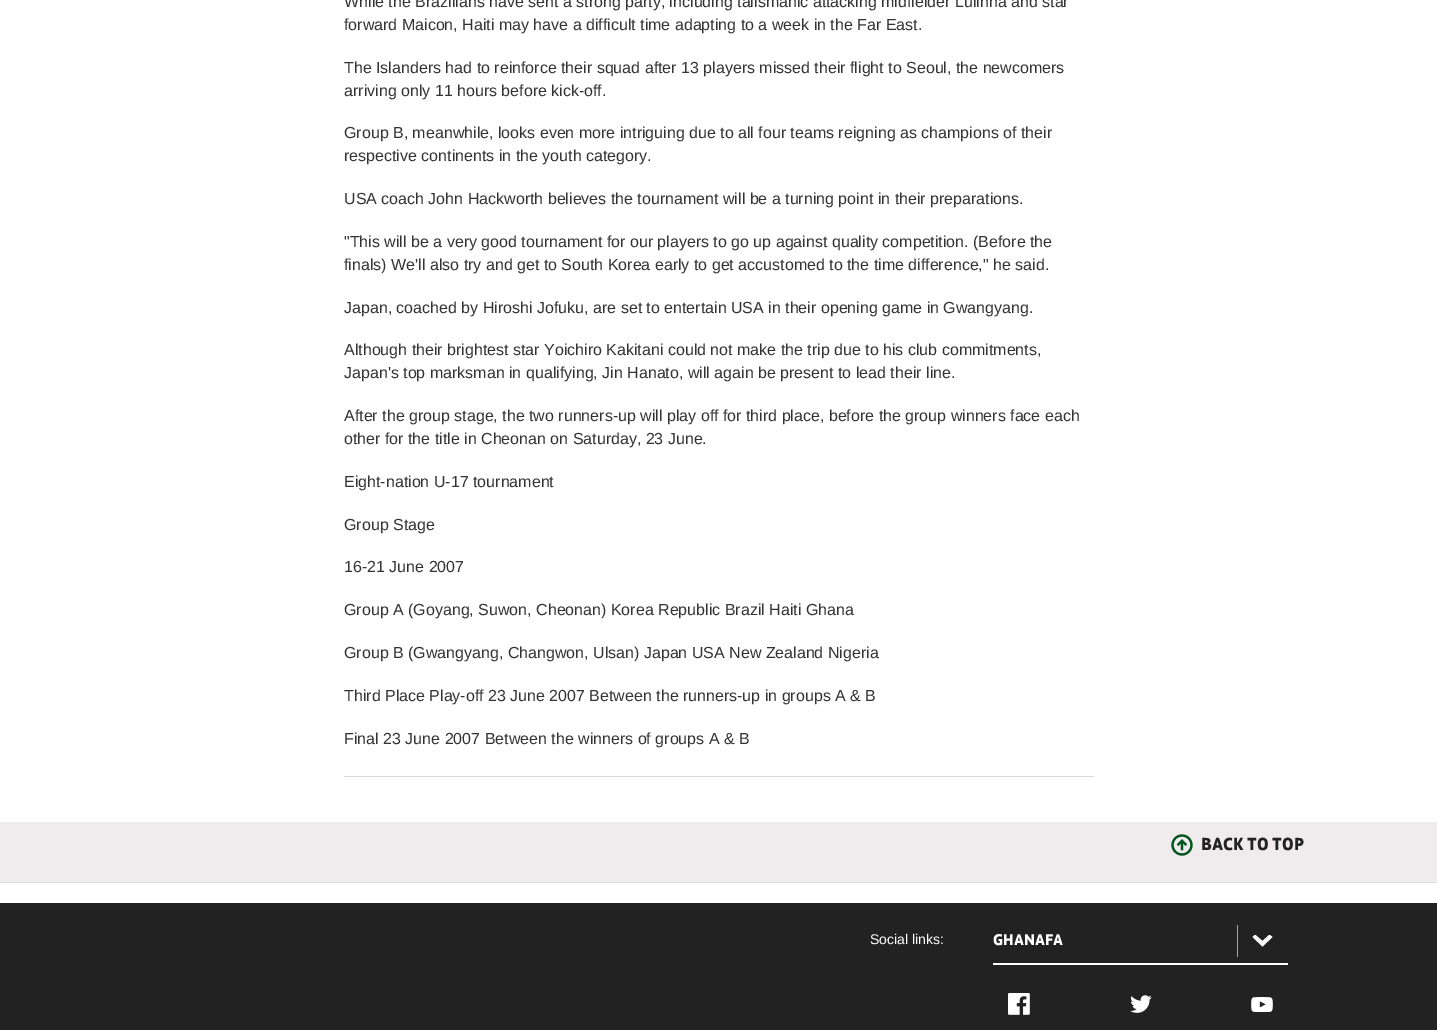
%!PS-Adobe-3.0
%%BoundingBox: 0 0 1437 1030
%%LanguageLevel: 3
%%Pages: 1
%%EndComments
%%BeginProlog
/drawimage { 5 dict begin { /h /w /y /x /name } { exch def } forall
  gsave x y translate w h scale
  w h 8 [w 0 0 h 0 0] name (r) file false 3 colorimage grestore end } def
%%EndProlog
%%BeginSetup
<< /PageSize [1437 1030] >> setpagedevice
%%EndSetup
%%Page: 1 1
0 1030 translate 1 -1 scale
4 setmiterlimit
1 setgray
0 0 1437 1030 rectfill
0.847 setgray
344 776 750 1 rectfill
0.941 0.925 0.929 setrgbcolor
0 822 1437 60 rectfill
0.863 setgray
0 882 1437 1 rectfill
(images/1.raw) 1171 834 22 22 drawimage
0.133 setgray
0 903 1437 127 rectfill
1 setgray
993 963 295 2 rectfill
0.6 0.647 0.702 setrgbcolor
1237 925 1 32 rectfill
1 setgray
newpath 1272.5 937 moveto 1262.5 946.5 lineto 1252.5 937 lineto 1254.5 935 lineto 1255.5 935 lineto 1262.5 941 lineto 1269 935 lineto 1270 935 lineto closepath fill
(images/2.raw) 1008 993 22 22 drawimage
(images/3.raw) 1130 995 22 18 drawimage
(images/4.raw) 1251 997 22 15 drawimage
/LiberationSans-Regular [16 0 0 -16 0 0] selectfont
0.2 setgray
344 7 moveto (While the Brazilians have sent a strong party, including talismanic attacking midfielder Lulinha and star) show
344 30 moveto (forward Maicon, Haiti may have a difficult time adapting to a week in the Far East.) show
344 73 moveto (The Islanders had to reinforce their squad after 13 players missed their flight to Seoul, the newcomers) show
344 96 moveto (arriving only 11 hours before kick-off.) show
344 138 moveto (Group B, meanwhile, looks even more intriguing due to all four teams reigning as champions of their) show
344 161 moveto (respective continents in the youth category.) show
344 204 moveto (USA coach John Hackworth believes the tournament will be a turning point in their preparations.) show
344 247 moveto ("This will be a very good tournament for our players to go up against quality competition. \(Before the) show
344 270 moveto (finals\) We'll also try and get to South Korea early to get accustomed to the time difference," he said.) show
344 313 moveto (Japan, coached by Hiroshi Jofuku, are set to entertain USA in their opening game in Gwangyang.) show
344 355 moveto (Although their brightest star Yoichiro Kakitani could not make the trip due to his club commitments,) show
344 378 moveto (Japan's top marksman in qualifying, Jin Hanato, will again be present to lead their line.) show
344 421 moveto (After the group stage, the two runners-up will play off for third place, before the group winners face each) show
344 444 moveto (other for the title in Cheonan on Saturday, 23 June.) show
344 487 moveto (Eight-nation U-17 tournament) show
344 530 moveto (Group Stage) show
344 572 moveto (16-21 June 2007) show
344 615 moveto (Group A \(Goyang, Suwon, Cheonan\) Korea Republic Brazil Haiti Ghana) show
344 658 moveto (Group B \(Gwangyang, Changwon, Ulsan\) Japan USA New Zealand Nigeria) show
344 701 moveto (Third Place Play-off 23 June 2007 Between the runners-up in groups A & B) show
344 744 moveto (Final 23 June 2007 Between the winners of groups A & B) show
/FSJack-Bold [18 0 0 -18 0 0] selectfont
0.133 setgray
1201 850 moveto (BACK TO TOP) show
/LiberationSans-Regular [14 0 0 -14 0 0] selectfont
1 setgray
870 944 moveto (Social links:) show
/FSJack-Bold [16 0 0 -16 0 0] selectfont
993 945 moveto (GHANAFA) show
showpage
%%EOF
